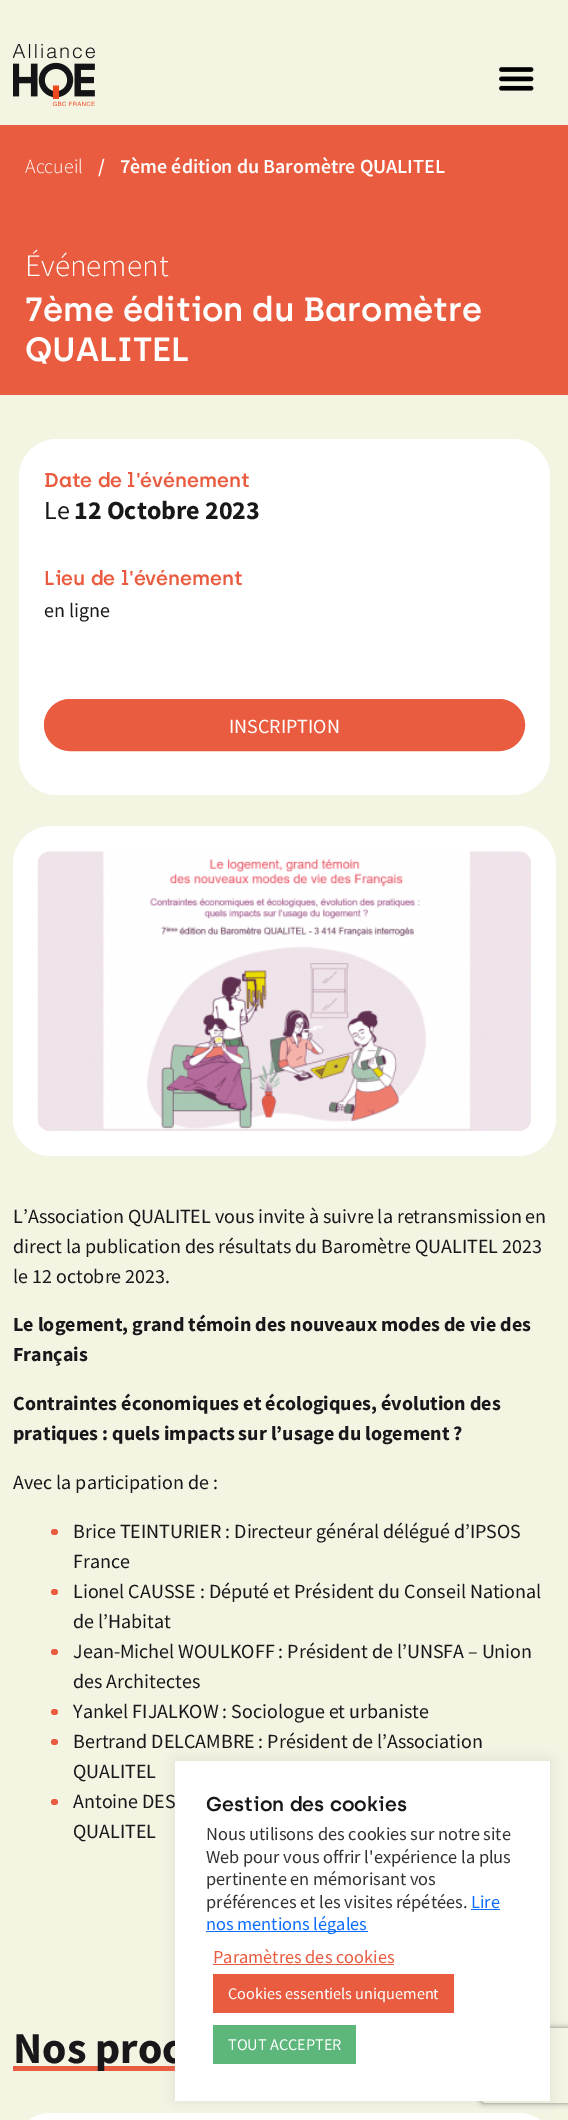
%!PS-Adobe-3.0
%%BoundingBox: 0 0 568 2120
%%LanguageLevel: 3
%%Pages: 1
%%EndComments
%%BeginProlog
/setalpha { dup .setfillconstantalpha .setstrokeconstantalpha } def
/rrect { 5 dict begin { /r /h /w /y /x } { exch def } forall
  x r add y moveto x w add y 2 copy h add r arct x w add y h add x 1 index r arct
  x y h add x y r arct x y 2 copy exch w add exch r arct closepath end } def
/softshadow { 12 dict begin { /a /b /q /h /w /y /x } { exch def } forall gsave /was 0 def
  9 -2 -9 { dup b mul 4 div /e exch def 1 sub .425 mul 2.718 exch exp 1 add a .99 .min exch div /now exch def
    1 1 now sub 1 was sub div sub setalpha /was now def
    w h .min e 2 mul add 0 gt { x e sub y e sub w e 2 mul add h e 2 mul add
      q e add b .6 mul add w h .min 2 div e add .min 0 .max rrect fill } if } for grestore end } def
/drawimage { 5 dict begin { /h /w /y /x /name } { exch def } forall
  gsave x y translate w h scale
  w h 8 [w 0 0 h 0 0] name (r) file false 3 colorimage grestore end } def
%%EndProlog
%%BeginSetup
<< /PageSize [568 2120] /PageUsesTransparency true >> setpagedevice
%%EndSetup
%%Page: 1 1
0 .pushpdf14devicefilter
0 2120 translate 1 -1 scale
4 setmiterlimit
0.957 0.957 0.89 setrgbcolor
0 0 568 2120 rectfill
(images/1.raw) 13 44 82 62 drawimage
(images/2.raw) 499 67 35 24 drawimage
0.918 0.361 0.247 setrgbcolor
0 125 568 270 rectfill
1 setgray
19 439 531 356 38 rrect fill
0.918 0.361 0.247 setrgbcolor
44.5 699.5 480 51 25.5 rrect gsave fill grestore
stroke
1 setgray
13 826 543 330 38 rrect fill
(images/3.raw) 37 851 494 280 drawimage
0.918 0.361 0.247 setrgbcolor
51 1529 7 6 3 rrect fill
51 1589 7 6 3 rrect fill
51 1649 7 6 3 rrect fill
51 1709 7 6 3 rrect fill
51 1739 7 6 3 rrect fill
51 1799 7 6 3 rrect fill
13 2066 162 5 rectfill
1 setgray
13 2113 543 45 38 rrect fill
0.675 0.671 0.671 setrgbcolor
175 1760 375 340 0 6 0.3 softshadow
gsave
newpath 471 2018 moveto 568 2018 lineto 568 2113 lineto 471 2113 lineto closepath 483.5 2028 moveto 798.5 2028 lineto 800 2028 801 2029 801 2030.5 curveto 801 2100.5 lineto 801 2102 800 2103 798.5 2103 curveto 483.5 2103 lineto 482 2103 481 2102 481 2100.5 curveto 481 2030.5 lineto 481 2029 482 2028 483.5 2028 curveto closepath eoclip newpath
0.502 setgray
481 2028 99 75 2.5 3 1 softshadow
grestore
/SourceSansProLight-Light [20 0 0 -20 0 0] selectfont
1 setgray
25 173 moveto (Accueil) show
/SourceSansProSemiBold-SemiBold [20 0 0 -20 0 0] selectfont
98 173 moveto (/) show
120 173 moveto (7ème édition du Baromètre QUALITEL) show
/SourceSansProLight-Light [31.25 0 0 -31.25 0 0] selectfont
25 276 moveto (Événement) show
/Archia-SemiBold [33.75 0 0 -33.75 0 0] selectfont
25 321 moveto (7ème édition du Baromètre) show
25 361 moveto (QUALITEL) show
/Archia-SemiBold [20 0 0 -20 0 0] selectfont
0.918 0.361 0.247 setrgbcolor
44 487 moveto (Date de l'événement) show
/SourceSansPro-Regular [26 0 0 -26 0 0] selectfont
0.102 0.09 0.106 setrgbcolor
44 519 moveto (Le) show
/SourceSansPro-Bold [26 0 0 -26 0 0] selectfont
74 519 moveto (12 Octobre 2023) show
/Archia-SemiBold [20 0 0 -20 0 0] selectfont
0.918 0.361 0.247 setrgbcolor
44 585 moveto (Lieu de l'événement) show
/SourceSansPro-Regular [20 0 0 -20 0 0] selectfont
0.102 0.09 0.106 setrgbcolor
44 617 moveto (en ligne) show
1 setgray
229 733 moveto (INSCRIPTION) show
0.102 0.09 0.106 setrgbcolor
13 1223 moveto (L’Association QUALITEL vous invite à suivre la retransmission en) show
13 1253 moveto (direct la publication des résultats du Baromètre QUALITEL 2023) show
13 1283 moveto (le 12 octobre 2023.) show
/SourceSansPro-Bold [20 0 0 -20 0 0] selectfont
13 1331 moveto (Le logement, grand témoin des nouveaux modes de vie des) show
13 1361 moveto (Français) show
13 1410 moveto (Contraintes économiques et écologiques, évolution des) show
13 1440 moveto (pratiques : quels impacts sur l’usage du logement ?) show
/SourceSansPro-Regular [20 0 0 -20 0 0] selectfont
13 1489 moveto (Avec la participation de :) show
73 1538 moveto (Brice TEINTURIER : Directeur général délégué d’IPSOS) show
73 1568 moveto (France) show
73 1598 moveto (Lionel CAUSSE : Député et Président du Conseil National) show
73 1628 moveto (de l’Habitat) show
73 1658 moveto (Jean-Michel WOULKOFF : Président de l’UNSFA – Union) show
73 1688 moveto (des Architectes) show
73 1718 moveto (Yankel FIJALKOW : Sociologue et urbaniste) show
73 1748 moveto (Bertrand DELCAMBRE : Président de l’Association) show
73 1778 moveto (QUALITEL) show
73 1808 moveto (Antoine DES) show
73 1838 moveto (QUALITEL) show
/SourceSansPro-Bold [44 0 0 -44 0 0] selectfont
13 2063 moveto (Nos proc) show
1 setgray
175 1761 375 340 rectfill
/Archia-SemiBold [20 0 0 -20 0 0] selectfont
0.102 0.09 0.106 setrgbcolor
206 1811 moveto (Gestion des cookies) show
/SourceSansPro-Regular [18.3 0 0 -18.3 0 0] selectfont
0.2 setgray
206 1840 moveto (Nous utilisons des cookies sur notre site) show
206 1863 moveto (Web pour vous offrir l'expérience la plus) show
206 1885 moveto (pertinente en mémorisant vos) show
206 1908 moveto (préférences et les visites répétées.) show
0.051 0.431 0.992 setrgbcolor
471 1908 moveto (Lire) show
471 1909 29 1 rectfill
206 1931 162 1 rectfill
206 1930 moveto (nos mentions légales) show
0.918 0.361 0.247 setrgbcolor
213 1963 moveto (Paramètres des cookies) show
213 1964 181 1 rectfill
213 1974 241 39 rectfill
/SourceSansPro-Regular [16.25 0 0 -16.25 0 0] selectfont
1 setgray
228 1999 moveto (Cookies essentiels uniquement) show
0.365 0.714 0.478 setrgbcolor
213 2025 143 39 rectfill
1 setgray
228 2050 moveto (TOUT ACCEPTER) show
.poppdf14devicefilter showpage
%%EOF
